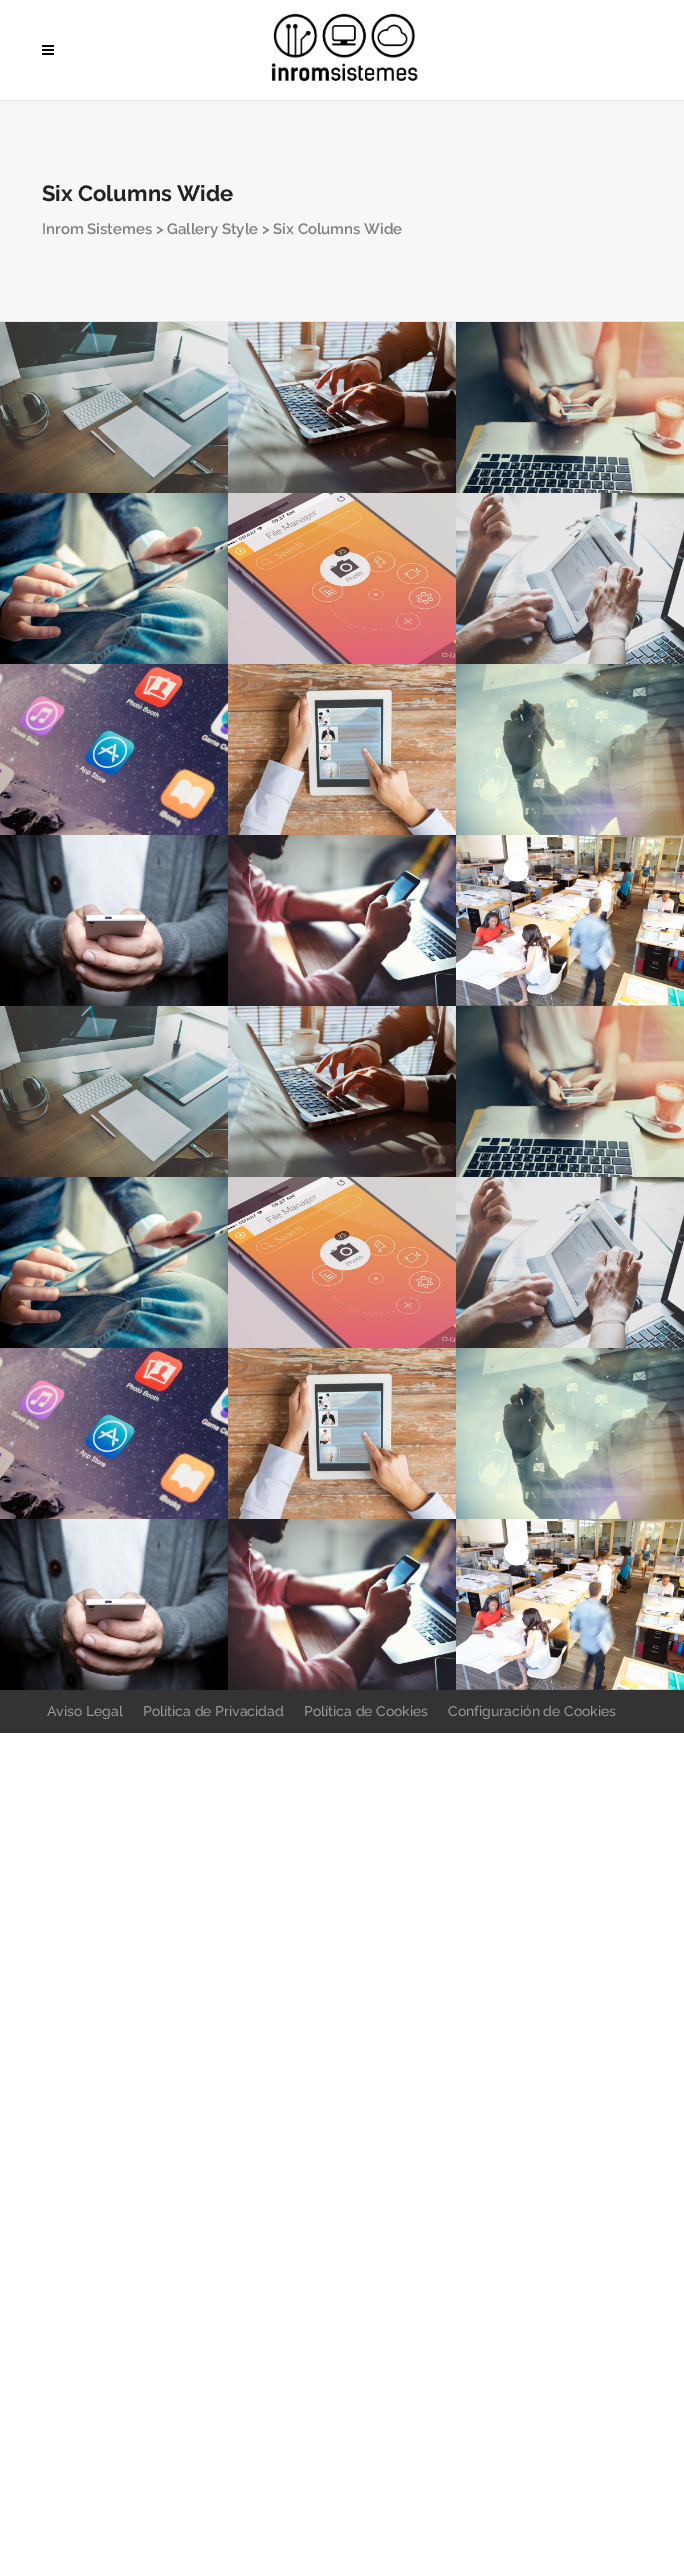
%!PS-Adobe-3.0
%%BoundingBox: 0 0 684 2553
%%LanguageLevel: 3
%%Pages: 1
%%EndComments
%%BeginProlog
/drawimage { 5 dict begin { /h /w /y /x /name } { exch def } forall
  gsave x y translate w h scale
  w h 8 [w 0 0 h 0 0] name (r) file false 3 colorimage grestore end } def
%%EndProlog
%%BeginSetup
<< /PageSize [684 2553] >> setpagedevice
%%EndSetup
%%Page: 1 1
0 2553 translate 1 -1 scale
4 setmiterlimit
1 setgray
0 0 684 2553 rectfill
(images/1.raw) 42 45 12 10 drawimage
(images/2.raw) 271 13 147 69 drawimage
0.969 setgray
0 101 684 220 rectfill
0.906 setgray
0 100 684 1 rectfill
0 321 684 1 rectfill
(images/3.raw) 0 322 228 171 drawimage
(images/4.raw) 228 322 228 171 drawimage
(images/5.raw) 456 322 228 171 drawimage
(images/6.raw) 0 493 228 171 drawimage
(images/7.raw) 228 493 228 171 drawimage
(images/8.raw) 456 493 228 171 drawimage
(images/9.raw) 0 664 228 171 drawimage
(images/10.raw) 228 664 228 171 drawimage
(images/11.raw) 456 664 228 171 drawimage
(images/12.raw) 0 835 228 171 drawimage
(images/13.raw) 228 835 228 171 drawimage
(images/14.raw) 456 835 228 171 drawimage
(images/15.raw) 0 1006 228 171 drawimage
(images/16.raw) 228 1006 228 171 drawimage
(images/17.raw) 456 1006 228 171 drawimage
(images/6.raw) 0 1177 228 171 drawimage
(images/7.raw) 228 1177 228 171 drawimage
(images/8.raw) 456 1177 228 171 drawimage
(images/9.raw) 0 1348 228 171 drawimage
(images/10.raw) 228 1348 228 171 drawimage
(images/11.raw) 456 1348 228 171 drawimage
(images/18.raw) 0 1519 228 171 drawimage
(images/19.raw) 228 1519 228 171 drawimage
(images/20.raw) 456 1519 228 171 drawimage
0.2 setgray
0 1690 684 43 rectfill
/Raleway-Bold [22 0 0 -22 0 0] selectfont
0.133 setgray
42 201 moveto (Six Columns Wide) show
/Raleway-SemiBold [15 0 0 -15 0 0] selectfont
0.498 setgray
42 234 moveto (Inrom Sistemes > Gallery Style > Six Columns Wide) show
/Raleway-Medium [14 0 0 -14 0 0] selectfont
0.6 setgray
47 1716 moveto (Aviso Legal) show
143 1716 moveto (Política de Privacidad) show
304 1716 moveto (Política de Cookies) show
448 1716 moveto (Configuración de Cookies) show
showpage
%%EOF
